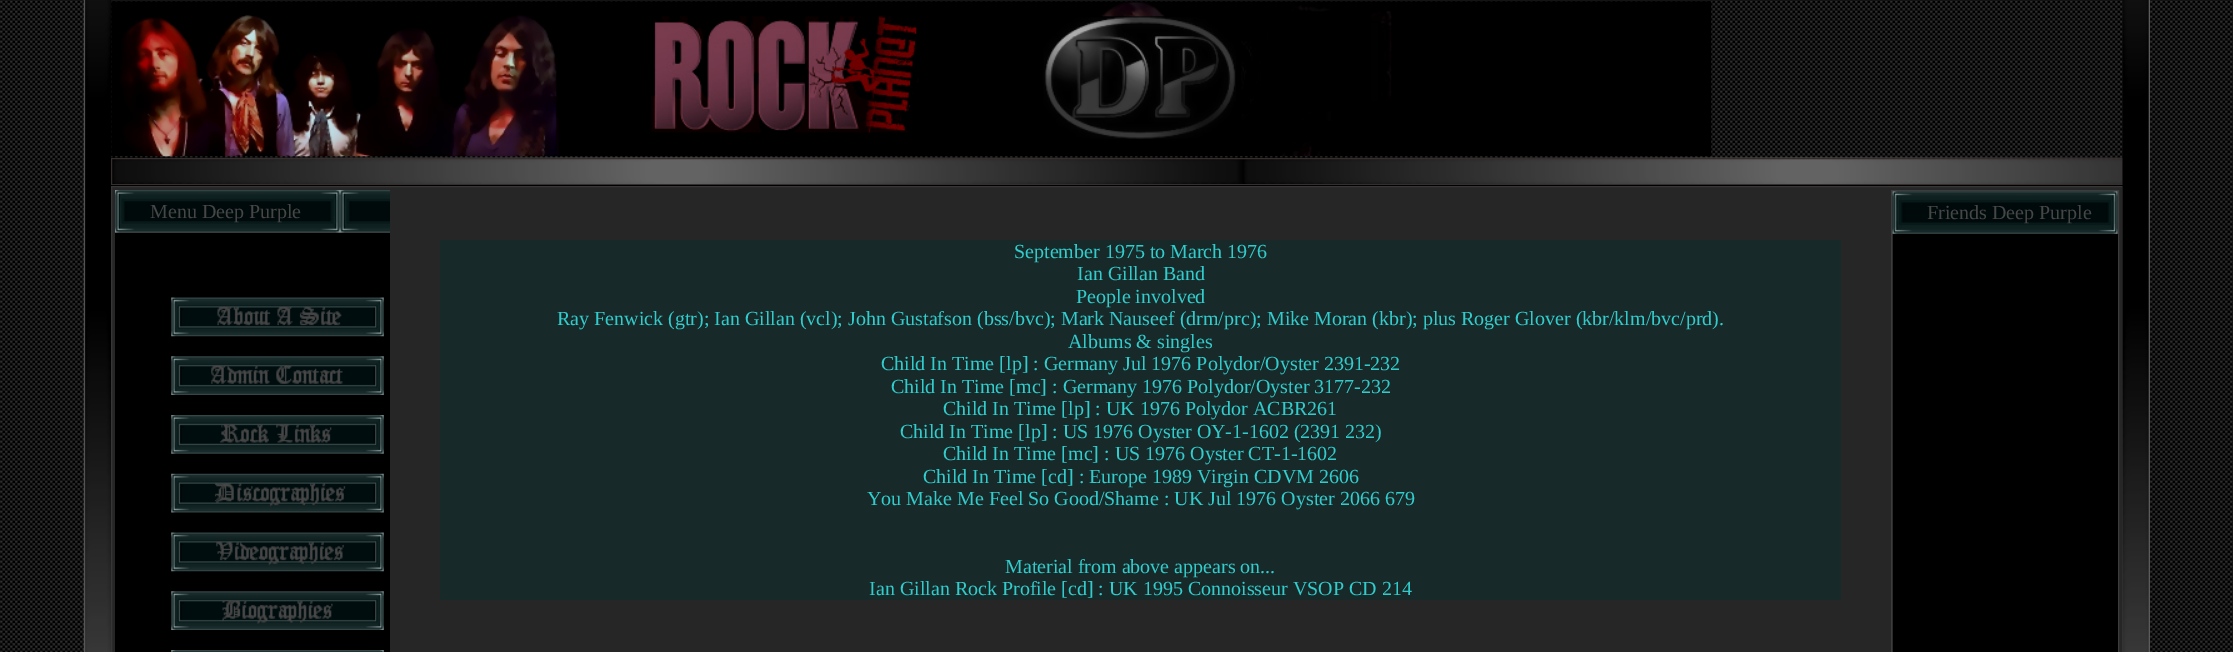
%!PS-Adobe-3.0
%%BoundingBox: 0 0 2233 652
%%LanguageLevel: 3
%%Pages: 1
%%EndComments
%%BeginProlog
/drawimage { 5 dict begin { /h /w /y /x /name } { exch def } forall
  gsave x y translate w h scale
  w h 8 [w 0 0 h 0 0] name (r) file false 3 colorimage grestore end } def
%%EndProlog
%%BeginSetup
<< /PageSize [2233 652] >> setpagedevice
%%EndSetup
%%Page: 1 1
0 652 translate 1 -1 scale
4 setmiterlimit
1 setgray
0 0 2233 652 rectfill
(images/1.raw) 0 0 2233 652 drawimage
(images/2.raw) 83 0 29 652 drawimage
(images/3.raw) 111 1 1601 156 drawimage
(images/4.raw) 111 157 2012 27 drawimage
0.208 0.18 0.173 setrgbcolor
111.5 158.5 2011 26 rectstroke
0 setgray
111 185 2012 1 rectfill
0.149 setgray
newpath 111.5 186.5 moveto 2122.5 186.5 lineto 2122.5 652.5 lineto 111.5 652.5 lineto closepath gsave fill grestore
0.212 setgray
stroke
115 232 275 1 rectfill
(images/5.raw) 115 190 275 43 drawimage
0 setgray
115 233 275 419 rectfill
(images/6.raw) 171 297 213 40 drawimage
(images/7.raw) 171 356 213 39 drawimage
(images/8.raw) 171 415 213 39 drawimage
(images/9.raw) 171 473 213 40 drawimage
(images/10.raw) 171 532 213 40 drawimage
(images/11.raw) 171 591 213 39 drawimage
(images/12.raw) 171 650 213 2 drawimage
0.235 setgray
1891.5 190.5 227 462 rectstroke
(images/13.raw) 1892 191 226 43 drawimage
0 setgray
1893 234 225 418 rectfill
0.094 0.161 0.165 setrgbcolor
440 240 1401 360 rectfill
(images/14.raw) 2122 0 28 652 drawimage
/LiberationSerif-Regular [20 0 0 -20 0 0] selectfont
0.275 setgray
150 218 moveto (Menu Deep Purple) show
1927 219 moveto (Friends Deep Purple) show
0.2 0.8 0.8 setrgbcolor
1014 258 moveto (September 1975 to March 1976) show
1077 280 moveto (Ian Gillan Band) show
1076 303 moveto (People involved) show
557 325 moveto (Ray Fenwick \(gtr\); Ian Gillan \(vcl\); John Gustafson \(bss/bvc\); Mark Nauseef \(drm/prc\); Mike Moran \(kbr\); plus Roger Glover \(kbr/klm/bvc/prd\).) show
1068 348 moveto (Albums & singles) show
881 370 moveto (Child In Time [lp] : Germany Jul 1976 Polydor/Oyster 2391-232) show
891 393 moveto (Child In Time [mc] : Germany 1976 Polydor/Oyster 3177-232) show
943 415 moveto (Child In Time [lp] : UK 1976 Polydor ACBR261) show
900 438 moveto (Child In Time [lp] : US 1976 Oyster OY-1-1602 \(2391 232\)) show
943 460 moveto (Child In Time [mc] : US 1976 Oyster CT-1-1602) show
923 483 moveto (Child In Time [cd] : Europe 1989 Virgin CDVM 2606) show
867 505 moveto (You Make Me Feel So Good/Shame : UK Jul 1976 Oyster 2066 679) show
1005 573 moveto (Material from above appears on...) show
869 595 moveto (Ian Gillan Rock Profile [cd] : UK 1995 Connoisseur VSOP CD 214) show
showpage
%%EOF
